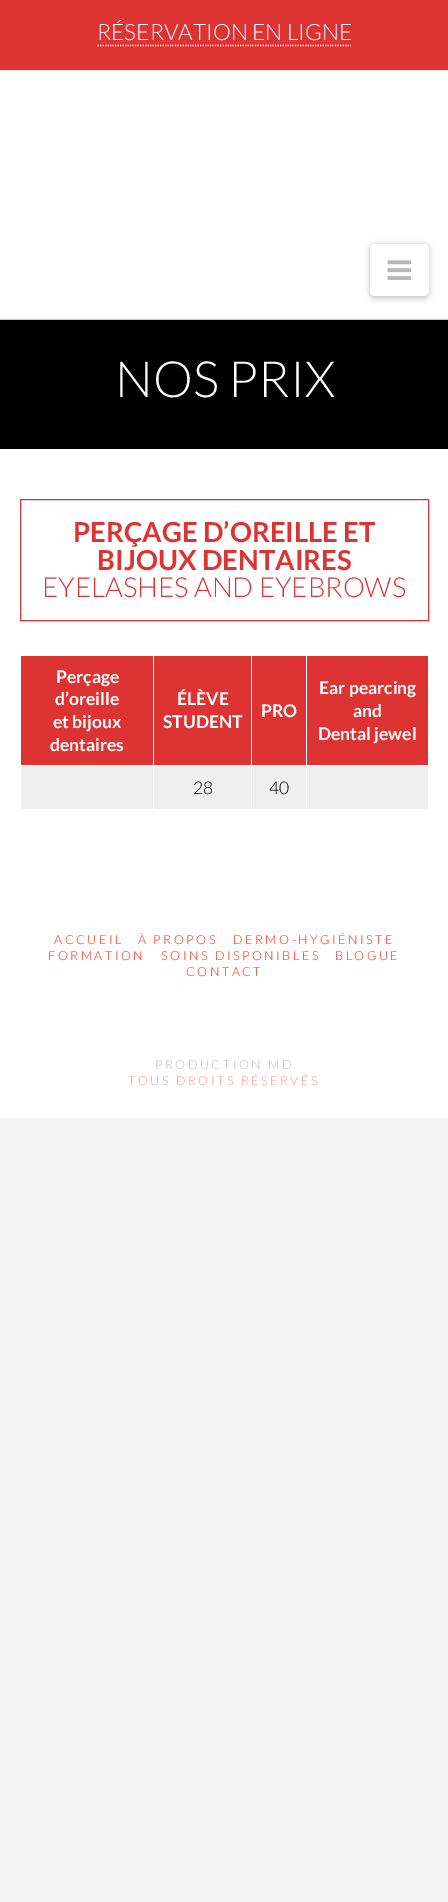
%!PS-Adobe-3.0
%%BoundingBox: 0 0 448 1902
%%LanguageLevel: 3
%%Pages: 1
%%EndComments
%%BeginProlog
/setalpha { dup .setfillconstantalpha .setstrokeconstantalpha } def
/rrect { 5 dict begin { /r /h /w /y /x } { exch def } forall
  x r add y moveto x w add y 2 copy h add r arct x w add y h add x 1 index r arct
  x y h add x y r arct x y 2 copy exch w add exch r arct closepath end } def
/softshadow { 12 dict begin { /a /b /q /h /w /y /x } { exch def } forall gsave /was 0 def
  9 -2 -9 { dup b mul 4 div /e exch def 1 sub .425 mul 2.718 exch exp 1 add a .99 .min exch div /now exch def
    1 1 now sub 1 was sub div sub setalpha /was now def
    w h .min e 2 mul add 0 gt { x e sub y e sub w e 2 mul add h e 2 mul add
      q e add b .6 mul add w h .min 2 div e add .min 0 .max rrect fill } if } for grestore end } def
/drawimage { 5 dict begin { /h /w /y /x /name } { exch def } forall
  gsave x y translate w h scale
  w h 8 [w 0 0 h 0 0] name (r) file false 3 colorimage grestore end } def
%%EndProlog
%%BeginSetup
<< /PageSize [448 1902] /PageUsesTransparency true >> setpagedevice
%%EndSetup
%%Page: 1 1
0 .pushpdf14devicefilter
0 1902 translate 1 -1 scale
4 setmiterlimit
0.953 setgray
0 0 448 1902 rectfill
0.867 0.2 0.2 setrgbcolor
0 0 448 70 rectfill
1 setgray
1.2 setlinewidth
[1.25 1.25] 0 setdash
newpath 97.5 45.5 moveto 351 45.5 lineto stroke
0 71 448 247 rectfill
0.8 setgray
0 319 448 1 rectfill
0 setgray
370 245 59 53 5 3 0.25 softshadow
1 setgray
370 244 59 52 5 rrect fill
(images/1.raw) 387 260 25 20 drawimage
0 setgray
0 320 448 129 rectfill
1 setgray
0 449 448 669 rectfill
0.867 0.2 0.2 setrgbcolor
1 setlinewidth
[] 0 setdash
20.5 499.5 408 121 rectstroke
21 656 132 109 rectfill
154 656 97 109 rectfill
252 656 54 109 rectfill
307 656 121 109 rectfill
0.937 setgray
21 766 132 43 rectfill
154 766 97 43 rectfill
252 766 54 43 rectfill
307 766 121 43 rectfill
/Lato-Light [22.5 0 0 -22.5 0 0] selectfont
1 setgray
97 40 moveto (RÉSERVATION EN LIGNE) show
/Lato-Light [50 0 0 -50 0 0] selectfont
115 397 moveto (NOS PRIX) show
/Lato-Bold [27.5 0 0 -27.5 0 0] selectfont
0.867 0.2 0.2 setrgbcolor
73 542 moveto (PERÇAGE D’OREILLE ET) show
97 570 moveto (BIJOUX DENTAIRES) show
/Lato-Light [27.5 0 0 -27.5 0 0] selectfont
42 597 moveto (EYELASHES AND EYEBROWS) show
/Lato-Bold [17.5 0 0 -17.5 0 0] selectfont
1 setgray
56 683 moveto (Perçage) show
55 705 moveto (d’oreille) show
53 728 moveto (et bijoux) show
50 751 moveto (dentaires) show
177 705 moveto (ÉLÈVE) show
163 728 moveto (STUDENT) show
261 717 moveto (PRO) show
319 694 moveto (Ear pearcing) show
353 717 moveto (and) show
318 740 moveto (Dental jewel) show
/Lato-Light [17.5 0 0 -17.5 0 0] selectfont
0 setgray
193 794 moveto (28) show
269 794 moveto (40) show
/Lato-Light [12.5 0 0 -12.5 0 0] selectfont
1 0.165 0.075 setrgbcolor
54 944 moveto 2.5 0 (ACCUEIL) ashow
138 944 moveto 2.5 0 (À PROPOS) ashow
233 944 moveto 2.5 0 (DERMO-HYGIÉNISTE) ashow
48 960 moveto 2.5 0 (FORMATION) ashow
161 960 moveto 2.5 0 (SOINS DISPONIBLES) ashow
335 960 moveto 2.5 0 (BLOGUE) ashow
186 976 moveto 2.5 0 (CONTACT) ashow
0.741 setgray
155 1069 moveto 2.5 0 (PRODUCTION MD) ashow
1 0.584 0.537 setrgbcolor
128 1085 moveto 2.5 0 (TOUS DROITS RÉSERVÉS) ashow
.poppdf14devicefilter showpage
%%EOF
